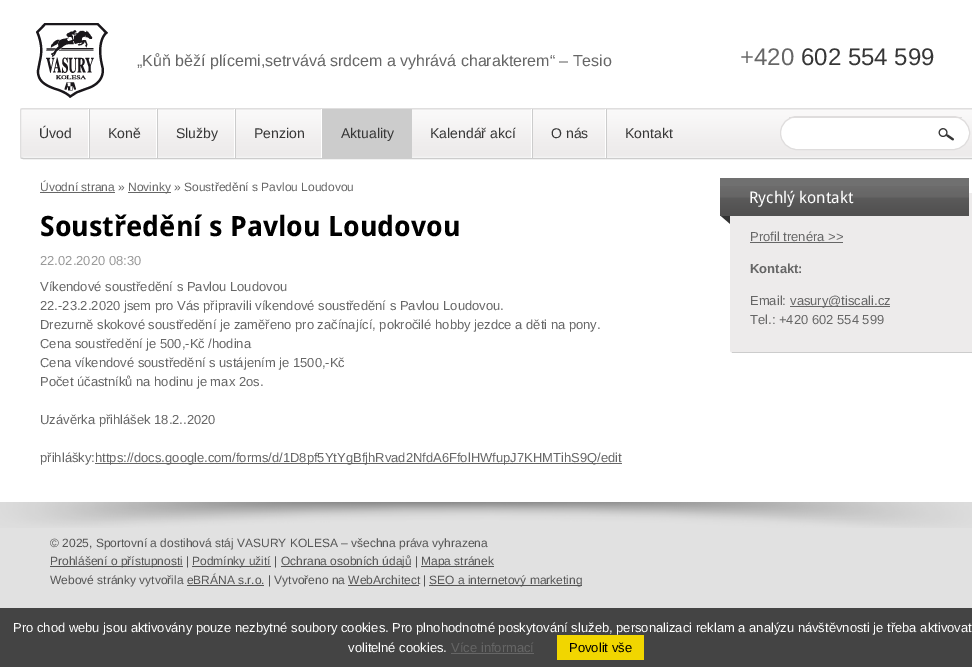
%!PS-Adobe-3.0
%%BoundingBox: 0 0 972 667
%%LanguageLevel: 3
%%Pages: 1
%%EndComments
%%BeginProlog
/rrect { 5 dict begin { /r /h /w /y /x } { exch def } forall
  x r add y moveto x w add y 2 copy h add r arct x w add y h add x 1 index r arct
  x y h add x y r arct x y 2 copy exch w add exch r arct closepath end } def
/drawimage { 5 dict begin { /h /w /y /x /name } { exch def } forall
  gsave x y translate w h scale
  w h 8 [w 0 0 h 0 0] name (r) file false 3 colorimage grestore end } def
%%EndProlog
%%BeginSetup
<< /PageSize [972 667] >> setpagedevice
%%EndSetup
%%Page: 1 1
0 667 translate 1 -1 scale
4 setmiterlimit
1 setgray
0 0 972 667 rectfill
(images/1.raw) 36 23 72 75 drawimage
0.953 setgray
20 108 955 51 3 rrect fill
(images/2.raw) 20 109 952 48 drawimage
0.8 setgray
newpath 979 158 moveto 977 158.5 lineto 23 158.5 lineto 21 158 lineto stroke
0.875 0.871 0.871 setrgbcolor
newpath 21 158 moveto 20.5 156 lineto 20.5 111 lineto 21 109 lineto 23 108.5 lineto 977 108.5 lineto 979 109 lineto 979.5 111 lineto 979.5 156 lineto 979 158 lineto stroke
(images/3.raw) 88 109 2 49 drawimage
(images/3.raw) 156 109 2 49 drawimage
(images/3.raw) 234 109 2 49 drawimage
(images/3.raw) 321 109 2 49 drawimage
0.8 setgray
323 109 89 49 rectfill
(images/3.raw) 531 109 2 49 drawimage
(images/3.raw) 605 109 2 49 drawimage
1 setgray
newpath 797 118 moveto 953 118 lineto 962 118 969 125 969 133 curveto 969 142 962 149 953 149 curveto 797 149 lineto 788 149 781 142 781 133 curveto 781 125 788 118 797 118 curveto closepath fill
0.875 0.867 0.867 setrgbcolor
780.5 116.5 189 33 16.5 rrect stroke
789 117 173 1 rectfill
(images/4.raw) 938 128 16 13 drawimage
0.4 setgray
40 192 75 1 rectfill
128 192 43 1 rectfill
95 463 527 1 rectfill
0.929 0.922 0.922 setrgbcolor
730 193 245 160 3 rrect fill
0.8 setgray
732 352 240 1 rectfill
(images/5.raw) 720 216 10 8 drawimage
0.439 setgray
720 178 249 8 rectfill
(images/6.raw) 720 186 249 30 drawimage
0.4 setgray
750 242 93 1 rectfill
790 306 100 1 rectfill
0.882 setgray
0 502 972 106 rectfill
(images/7.raw) 0 502 972 26 drawimage
0.333 setgray
50 566 133 1 rectfill
192 566 79 1 rectfill
281 566 130 1 rectfill
421 566 73 1 rectfill
429 585 153 1 rectfill
187 585 77 1 rectfill
348 585 71 1 rectfill
0.267 setgray
0 608 972 59 rectfill
0.4 setgray
451 653 83 1 rectfill
0.945 0.839 0 setrgbcolor
557 635 87 25 rectfill
/LiberationSans-Regular [16 0 0 -16 0 0] selectfont
0.4 setgray
137 66 moveto („Kůň běží plícemi,setrvává srdcem a vyhrává charakterem“ – Tesio) show
/LiberationSans-Regular [24 0 0 -24 0 0] selectfont
740 65 moveto (+420) show
0.212 setgray
801 65 moveto (602 554 599) show
/LiberationSans-Regular [14 0 0 -14 0 0] selectfont
39 138 moveto (Úvod) show
108 138 moveto (Koně) show
176 138 moveto (Služby) show
254 138 moveto (Penzion) show
341 138 moveto (Aktuality) show
430 138 moveto (Kalendář akcí) show
551 138 moveto (O nás) show
625 138 moveto (Kontakt) show
/LiberationSans-Regular [12 0 0 -12 0 0] selectfont
0.4 setgray
40 191 moveto (Úvodní strana ») show
128 191 moveto (Novinky » Soustředění s Pavlou Loudovou) show
/DroidSans-Bold [28 0 0 -28 0 0] selectfont
0 setgray
40 236 moveto (Soustředění s Pavlou Loudovou) show
/LiberationSans-Regular [13 0 0 -13 0 0] selectfont
0.6 setgray
40 265 moveto (22.02.2020 08:30) show
0.4 setgray
40 291 moveto (Víkendové soustředění s Pavlou Loudovou) show
40 310 moveto (22.-23.2.2020 jsem pro Vás připravili víkendové soustředění s Pavlou Loudovou.) show
40 329 moveto (Drezurně skokové soustředění je zaměřeno pro začínající, pokročilé hobby jezdce a děti na pony.) show
40 348 moveto (Cena soustředění je 500,-Kč /hodina) show
40 367 moveto (Cena víkendové soustředění s ustájením je 1500,-Kč) show
40 386 moveto (Počet účastníků na hodinu je max 2os.) show
40 424 moveto (Uzávěrka přihlášek 18.2..2020) show
40 462 moveto (přihlášky:) show
95 462 moveto (https://docs.google.com/forms/d/1D8pf5YtYgBfjhRvad2NfdA6FfolHWfupJ7KHMTihS9Q/edit) show
/DroidSans-Regular [16 0 0 -16 0 0] selectfont
1 setgray
749 203 moveto (Rychlý kontakt) show
/LiberationSans-Regular [13 0 0 -13 0 0] selectfont
0.4 setgray
750 241 moveto (Profil trenéra >>) show
/LiberationSans-Bold [13 0 0 -13 0 0] selectfont
750 273 moveto (Kontakt:) show
/LiberationSans-Regular [13 0 0 -13 0 0] selectfont
750 305 moveto (Email:) show
790 305 moveto (vasury@tiscali.cz) show
750 324 moveto (Tel.: +420 602 554 599) show
/LiberationSans-Regular [12 0 0 -12 0 0] selectfont
0.333 setgray
50 547 moveto (© 2025, Sportovní a dostihová stáj VASURY KOLESA – všechna práva vyhrazena) show
50 565 moveto (Prohlášení o přístupnosti |) show
192 565 moveto (Podmínky užití |) show
281 565 moveto (Ochrana osobních údajů |) show
421 565 moveto (Mapa stránek) show
50 584 moveto (Webové stránky vytvořila eBRÁNA s.r.o. | Vytvořeno na WebArchitect |) show
429 584 moveto (SEO a internetový marketing) show
/LiberationSans-Regular [13 0 0 -13 0 0] selectfont
1 setgray
13 632 moveto (Pro chod webu jsou aktivovány pouze nezbytné soubory cookies. Pro plnohodnotné poskytování služeb, personalizaci reklam a analýzu návštěvnosti je třeba aktivovat) show
348 652 moveto (volitelné cookies.) show
0.4 setgray
451 652 moveto (Více informací) show
0 setgray
569 652 moveto (Povolit vše) show
showpage
%%EOF
